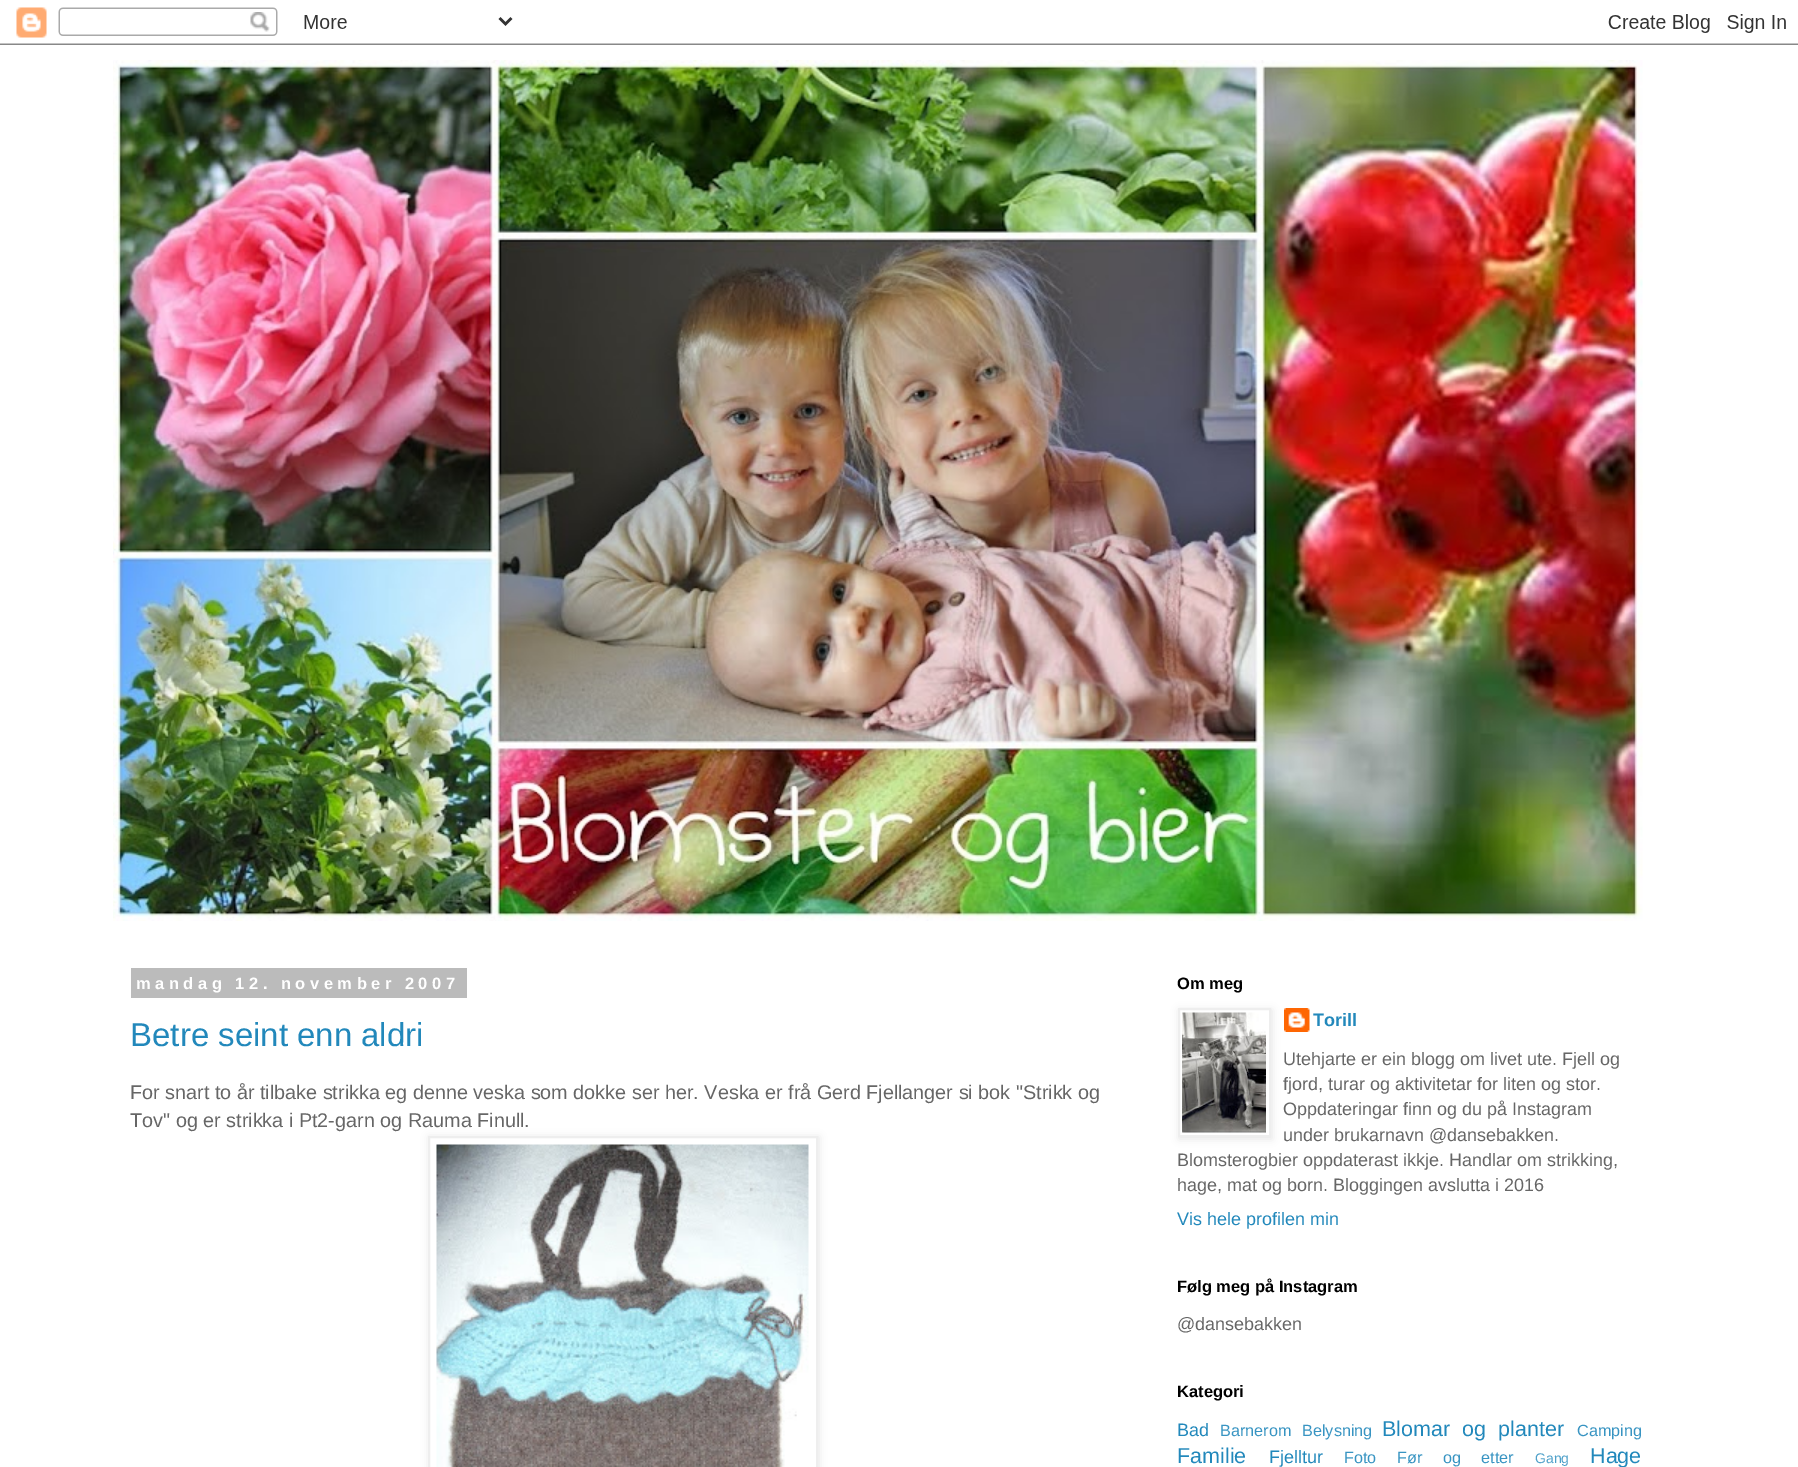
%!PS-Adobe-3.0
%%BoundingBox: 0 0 1798 1467
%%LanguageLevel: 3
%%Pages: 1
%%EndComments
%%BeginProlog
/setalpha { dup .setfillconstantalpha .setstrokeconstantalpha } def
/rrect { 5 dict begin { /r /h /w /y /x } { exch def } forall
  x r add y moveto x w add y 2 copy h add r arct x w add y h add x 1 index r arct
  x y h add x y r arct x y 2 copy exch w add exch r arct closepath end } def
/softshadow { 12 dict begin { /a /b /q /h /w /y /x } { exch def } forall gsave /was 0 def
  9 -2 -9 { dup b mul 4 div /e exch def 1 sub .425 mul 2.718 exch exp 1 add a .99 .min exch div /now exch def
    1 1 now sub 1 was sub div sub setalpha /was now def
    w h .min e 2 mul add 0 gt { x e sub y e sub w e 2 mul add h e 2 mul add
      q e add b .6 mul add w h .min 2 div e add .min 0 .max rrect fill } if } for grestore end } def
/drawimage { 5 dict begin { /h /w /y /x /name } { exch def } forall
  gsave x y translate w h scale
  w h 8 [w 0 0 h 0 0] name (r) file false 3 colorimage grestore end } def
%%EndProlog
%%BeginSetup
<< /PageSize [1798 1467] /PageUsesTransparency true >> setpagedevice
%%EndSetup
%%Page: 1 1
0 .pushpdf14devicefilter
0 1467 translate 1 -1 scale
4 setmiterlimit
1 setgray
0 0 1798 1467 rectfill
(images/1.raw) 0 7 1798 38 drawimage
(images/2.raw) 113 60 1530 861 drawimage
0.733 setgray
131 968 336 30 rectfill
0 setgray
429 1137 390 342 0 4 0.1 softshadow
1 setgray
newpath 429 1137 moveto 817 1137 lineto 817 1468 lineto 429 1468 lineto closepath gsave fill grestore
0.933 setgray
2 setlinewidth
stroke
(images/3.raw) 436 1144 373 323 drawimage
(images/5.raw) 1284 1008 26 24 drawimage
0 setgray
1179 1010 93 129 0 4 0.1 softshadow
1 setgray
newpath 1179 1009 moveto 1270 1009 lineto 1270 1136 lineto 1179 1136 lineto closepath gsave fill grestore
0.933 setgray
stroke
(images/4.raw) 1182 1012 84 121 drawimage
/LiberationSans-Bold [16.5 0 0 -16.5 0 0] selectfont
1 setgray
136 989 moveto 4.5 0 (mandag 12. november 2007) ashow
/LiberationSans-Regular [33 0 0 -33 0 0] selectfont
0.133 0.533 0.733 setrgbcolor
130 1046 moveto (Betre seint enn aldri) show
/LiberationSans-Regular [19.8 0 0 -19.8 0 0] selectfont
0.4 setgray
130 1099 moveto (For snart to år tilbake strikka eg denne veska som dokke ser her. Veska er frå Gerd Fjellanger si bok "Strikk og) show
130 1127 moveto (Tov" og er strikka i Pt2-garn og Rauma Finull.) show
/LiberationSans-Bold [16.5 0 0 -16.5 0 0] selectfont
0 setgray
1177 989 moveto (Om meg) show
/LiberationSans-Bold [18 0 0 -18 0 0] selectfont
0.133 0.533 0.733 setrgbcolor
1313 1026 moveto (Torill) show
/LiberationSans-Regular [18 0 0 -18 0 0] selectfont
0.4 setgray
1283 1065 moveto (Utehjarte er ein blogg om livet ute. Fjell og) show
1283 1090 moveto (fjord, turar og aktivitetar for liten og stor.) show
1283 1115 moveto (Oppdateringar finn og du på Instagram) show
1283 1141 moveto (under brukarnavn @dansebakken.) show
1177 1166 moveto (Blomsterogbier oppdaterast ikkje. Handlar om strikking,) show
1177 1191 moveto (hage, mat og born. Bloggingen avslutta i 2016) show
0.133 0.533 0.733 setrgbcolor
1177 1225 moveto (Vis hele profilen min) show
/LiberationSans-Bold [16.5 0 0 -16.5 0 0] selectfont
0 setgray
1177 1292 moveto (Følg meg på Instagram) show
/LiberationSans-Regular [18 0 0 -18 0 0] selectfont
0.4 setgray
1177 1330 moveto (@dansebakken) show
/LiberationSans-Bold [16.5 0 0 -16.5 0 0] selectfont
0 setgray
1177 1397 moveto (Kategori) show
/LiberationSans-Regular [18 0 0 -18 0 0] selectfont
0.133 0.533 0.733 setrgbcolor
1177 1436 moveto (Bad) show
/LiberationSans-Regular [16.25 0 0 -16.25 0 0] selectfont
0.22 0.58 0.761 setrgbcolor
1220 1436 moveto (Barnerom) show
1302 1436 moveto (Belysning) show
/LiberationSans-Regular [21.5 0 0 -21.5 0 0] selectfont
0.133 0.533 0.733 setrgbcolor
1382 1436 moveto 6 0 32 (Blomar og planter) widthshow
/LiberationSans-Regular [16.25 0 0 -16.25 0 0] selectfont
0.22 0.58 0.761 setrgbcolor
1577 1436 moveto (Camping) show
/LiberationSans-Regular [21.5 0 0 -21.5 0 0] selectfont
0.133 0.533 0.733 setrgbcolor
1177 1463 moveto (Familie) show
/LiberationSans-Regular [18 0 0 -18 0 0] selectfont
1269 1463 moveto (Fjelltur) show
/LiberationSans-Regular [16.25 0 0 -16.25 0 0] selectfont
0.22 0.58 0.761 setrgbcolor
1344 1463 moveto (Foto) show
1397 1463 moveto 16 0 32 (Før og etter) widthshow
/LiberationSans-Regular [14 0 0 -14 0 0] selectfont
0.306 0.627 0.788 setrgbcolor
1535 1463 moveto (Gang) show
/LiberationSans-Regular [21.5 0 0 -21.5 0 0] selectfont
0.133 0.533 0.733 setrgbcolor
1590 1463 moveto (Hage) show
.poppdf14devicefilter showpage
%%EOF
